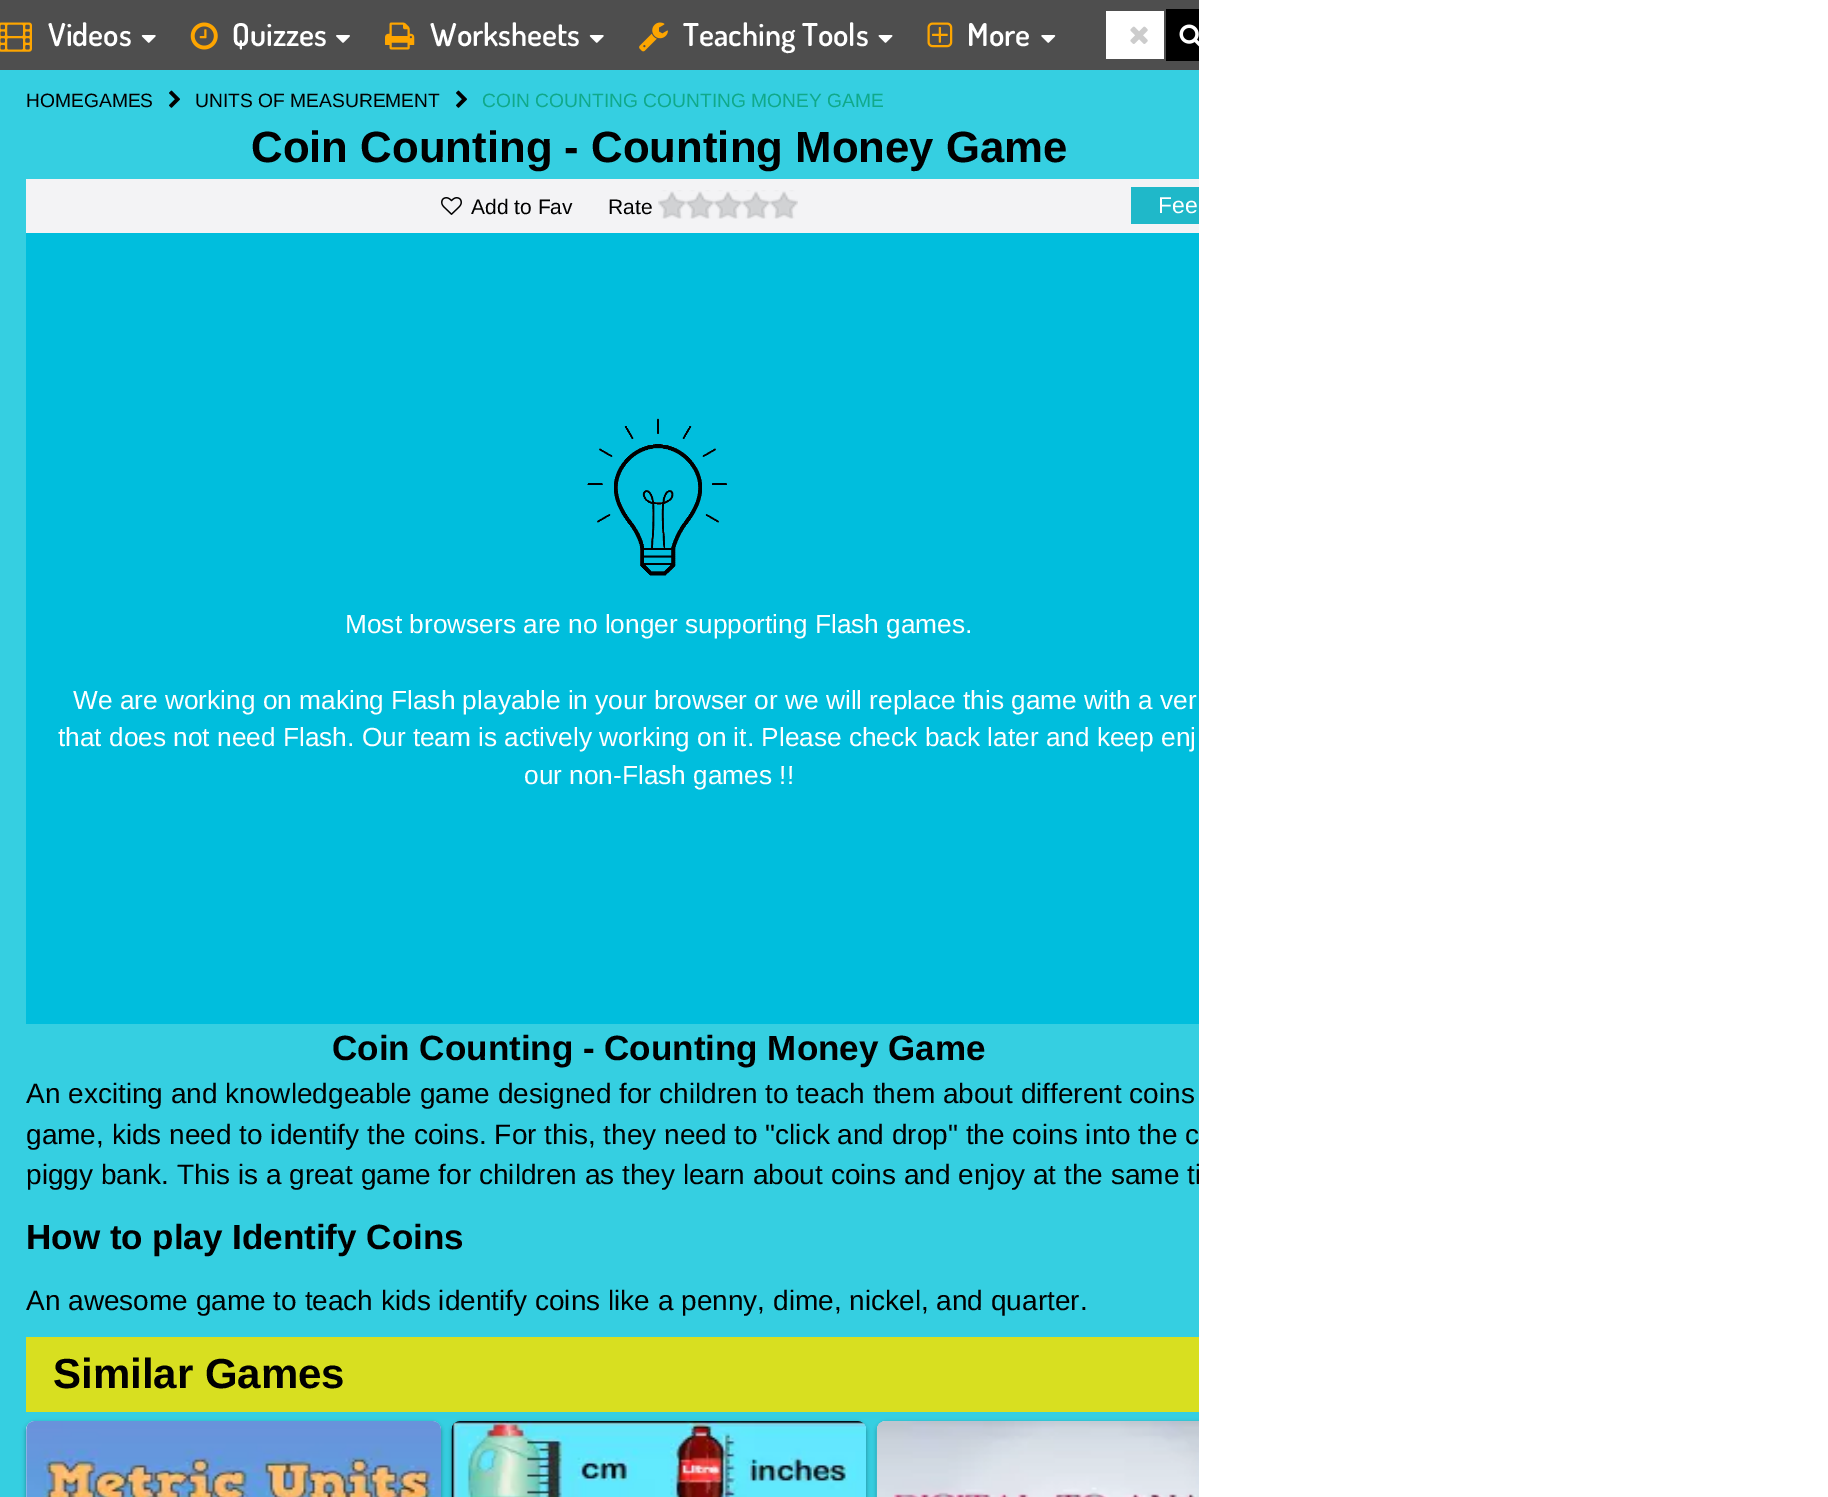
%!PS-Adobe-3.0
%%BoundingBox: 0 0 1828 1497
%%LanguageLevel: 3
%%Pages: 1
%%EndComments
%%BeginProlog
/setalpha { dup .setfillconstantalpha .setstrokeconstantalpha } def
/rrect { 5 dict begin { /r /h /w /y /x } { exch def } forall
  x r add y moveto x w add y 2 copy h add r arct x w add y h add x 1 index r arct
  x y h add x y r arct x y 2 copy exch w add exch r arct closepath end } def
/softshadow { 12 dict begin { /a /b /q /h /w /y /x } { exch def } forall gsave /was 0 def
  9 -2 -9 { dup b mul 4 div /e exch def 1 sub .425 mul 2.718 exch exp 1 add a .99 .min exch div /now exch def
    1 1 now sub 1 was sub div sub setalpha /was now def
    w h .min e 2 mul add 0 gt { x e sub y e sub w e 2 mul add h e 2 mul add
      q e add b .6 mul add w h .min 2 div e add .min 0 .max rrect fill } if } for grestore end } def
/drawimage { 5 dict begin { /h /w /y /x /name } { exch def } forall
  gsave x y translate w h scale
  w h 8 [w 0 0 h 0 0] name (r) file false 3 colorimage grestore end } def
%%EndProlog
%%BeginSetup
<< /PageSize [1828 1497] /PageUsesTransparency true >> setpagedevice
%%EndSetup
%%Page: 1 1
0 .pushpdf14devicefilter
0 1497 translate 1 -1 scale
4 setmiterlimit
0.306 setgray
0 0 1828 1497 rectfill
(images/1.raw) 0 22 32 30 drawimage
(images/2.raw) 141 35 15 8 drawimage
(images/3.raw) 190 22 28 28 drawimage
(images/4.raw) 336 35 14 8 drawimage
(images/5.raw) 385 22 30 28 drawimage
(images/2.raw) 589 35 15 8 drawimage
(images/6.raw) 639 22 29 30 drawimage
(images/7.raw) 878 35 15 8 drawimage
(images/8.raw) 927 22 26 26 drawimage
(images/9.raw) 1041 35 15 8 drawimage
1 setgray
1106 11 58 48 rectfill
(images/10.raw) 1130 26 18 18 drawimage
0 setgray
1166 9 33 52 rectfill
(images/11.raw) 1179 24 20 23 drawimage
0.208 0.812 0.882 setrgbcolor
0 70 1199 1427 rectfill
(images/12.raw) 169 90 11 18 drawimage
(images/12.raw) 456 90 11 18 drawimage
0.953 0.953 0.961 setrgbcolor
26 179 1173 54 rectfill
(images/13.raw) 441 197 21 18 drawimage
(images/14.raw) 658 190 140 29 drawimage
0.122 0.722 0.788 setrgbcolor
1131 187 68 37 rectfill
0 0.745 0.867 setrgbcolor
26 233 1173 791 rectfill
(images/15.raw) 587 418 140 158 drawimage
0.847 0.875 0.125 setrgbcolor
26 1337 1173 75 rectfill
0 setgray
26 1423 415 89 9 2 0.24 softshadow
26 1423 415 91 9 2.5 0.12 softshadow
1 setgray
26 1421 415 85 9 rrect fill
(images/16.raw) 26 1421 415 76 drawimage
(images/17.raw) 26 1421 415 76 drawimage
0 setgray
452 1423 414 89 9 2 0.24 softshadow
452 1423 414 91 9 2.5 0.12 softshadow
(images/18.raw) 451 1421 415 76 drawimage
(images/19.raw) 451 1421 415 76 drawimage
877 1423 415 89 9 2 0.24 softshadow
877 1423 415 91 9 2.5 0.12 softshadow
(images/20.raw) 877 1421 8 8 drawimage
(images/21.raw) 876 1421 323 76 drawimage
/Dosis-SemiBold [31.5 0 0 -31.5 0 0] selectfont
1 setgray
48 46 moveto (Videos) show
232 46 moveto (Quizzes) show
430 46 moveto (Worksheets) show
683 46 moveto (Teaching Tools) show
967 46 moveto (More) show
/LiberationSans-Regular [19.25 0 0 -19.25 0 0] selectfont
0 setgray
26 107 moveto (HOMEGAMES) show
195 107 moveto (UNITS OF MEASUREMENT) show
0.063 0.663 0.541 setrgbcolor
482 107 moveto (COIN COUNTING COUNTING MONEY GAME) show
/LiberationSans-Bold [43.75 0 0 -43.75 0 0] selectfont
0 setgray
251 162 moveto (Coin Counting - Counting Money Game) show
/LiberationSans-Regular [21 0 0 -21 0 0] selectfont
471 214 moveto (Add to Fav) show
608 214 moveto (Rate) show
/LiberationSans-Regular [23 0 0 -23 0 0] selectfont
1 setgray
1158 213 moveto (Fee) show
/LiberationSans-Regular [26.25 0 0 -26.25 0 0] selectfont
345 633 moveto (Most browsers are no longer supporting Flash games.) show
73 709 moveto (We are working on making Flash playable in your browser or we will replace this game with a ver) show
58 746 moveto (that does not need Flash. Our team is actively working on it. Please check back later and keep enj) show
524 784 moveto (our non-Flash games !!) show
/LiberationSans-Bold [35 0 0 -35 0 0] selectfont
0 setgray
332 1060 moveto (Coin Counting - Counting Money Game) show
/LiberationSans-Regular [28 0 0 -28 0 0] selectfont
26 1103 moveto (An exciting and knowledgeable game designed for children to teach them about different coins) show
26 1144 moveto (game, kids need to identify the coins. For this, they need to "click and drop" the coins into the c) show
26 1184 moveto (piggy bank. This is a great game for children as they learn about coins and enjoy at the same ti) show
1 setgray
1199 0 629 1497 rectfill
/LiberationSans-Bold [35 0 0 -35 0 0] selectfont
0 setgray
26 1249 moveto (How to play Identify Coins) show
/LiberationSans-Regular [28 0 0 -28 0 0] selectfont
26 1310 moveto (An awesome game to teach kids identify coins like a penny, dime, nickel, and quarter.) show
/LiberationSans-Bold [42 0 0 -42 0 0] selectfont
53 1388 moveto (Similar Games) show
.poppdf14devicefilter showpage
%%EOF
